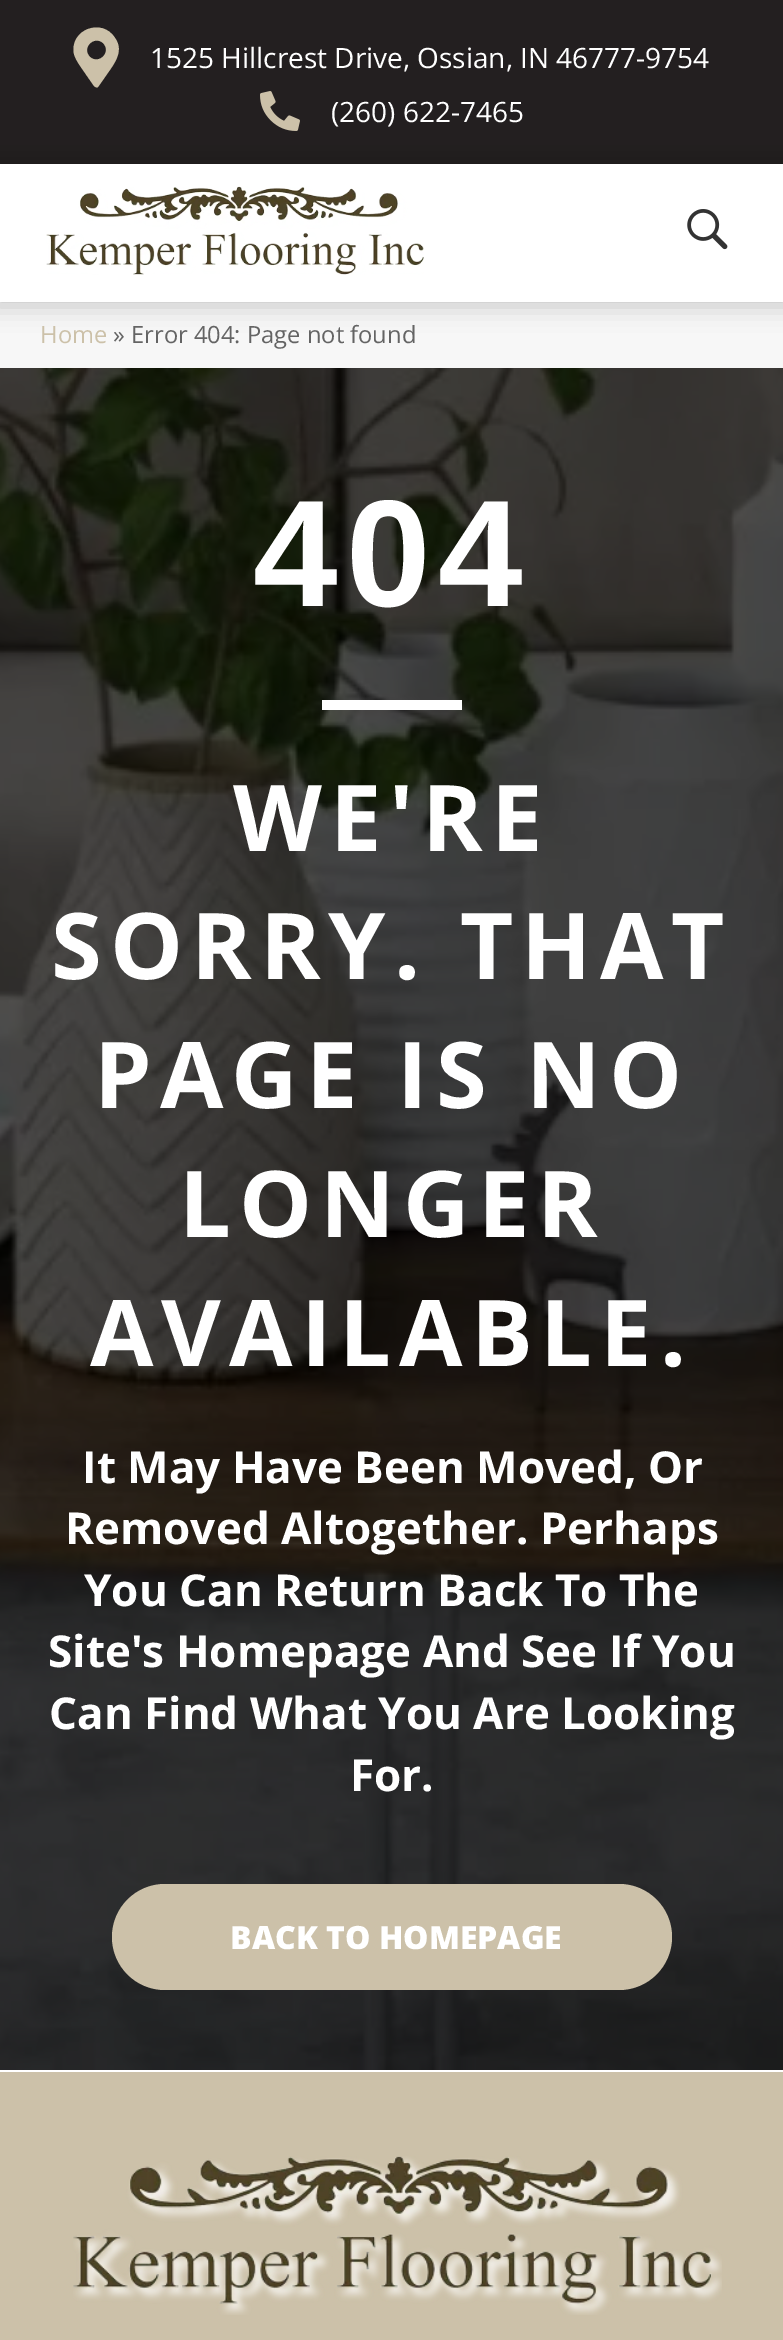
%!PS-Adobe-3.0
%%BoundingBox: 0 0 783 2340
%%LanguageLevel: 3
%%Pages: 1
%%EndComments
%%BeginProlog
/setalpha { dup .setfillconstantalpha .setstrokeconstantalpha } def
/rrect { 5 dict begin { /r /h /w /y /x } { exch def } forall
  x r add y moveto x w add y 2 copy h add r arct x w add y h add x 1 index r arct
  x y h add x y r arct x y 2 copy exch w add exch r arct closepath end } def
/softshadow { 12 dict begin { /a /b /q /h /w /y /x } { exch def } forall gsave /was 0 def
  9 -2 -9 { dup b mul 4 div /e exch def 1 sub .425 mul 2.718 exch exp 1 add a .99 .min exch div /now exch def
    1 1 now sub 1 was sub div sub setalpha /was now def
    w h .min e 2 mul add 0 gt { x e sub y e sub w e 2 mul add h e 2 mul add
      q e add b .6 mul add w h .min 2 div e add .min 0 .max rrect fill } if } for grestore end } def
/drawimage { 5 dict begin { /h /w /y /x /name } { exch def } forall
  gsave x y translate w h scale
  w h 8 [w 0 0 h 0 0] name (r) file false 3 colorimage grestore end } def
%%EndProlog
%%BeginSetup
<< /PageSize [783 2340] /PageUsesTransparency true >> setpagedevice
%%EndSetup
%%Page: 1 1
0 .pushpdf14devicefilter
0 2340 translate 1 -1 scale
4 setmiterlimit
1 setgray
0 0 783 2340 rectfill
0.137 0.122 0.125 setrgbcolor
0 0 783 164 rectfill
0.8 0.757 0.663 setrgbcolor
newpath 94 86 moveto 85 73 lineto 81 67 76 61 74 54 curveto 69 30 102 17 115 38 curveto 125 52 113 65 105 77 curveto 98 87 lineto 97 88 95 87 94 86 curveto closepath 90 57 moveto 99 65 112 52 103 43 curveto 94 35 81 48 90 57 curveto closepath fill
(images/1.raw) 260 91 40 40 drawimage
0.969 setgray
0 302 783 66 rectfill
gsave
newpath 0 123 moveto 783 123 lineto 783 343 lineto 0 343 lineto closepath 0 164 moveto 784 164 lineto 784 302 lineto 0 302 lineto closepath eoclip newpath
0 setgray
-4 160 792 146 0 12 0.2 softshadow
grestore
(images/2.raw) 46 186 378 89 drawimage
(images/3.raw) 687 209 41 41 drawimage
(images/4.raw) 0 368 783 1702 drawimage
1 setgray
322 700 140 10 rectfill
0.8 0.757 0.663 setrgbcolor
112 1884 560 106 53 rrect fill
0 2072 783 268 rectfill
(images/5.raw) 73 2156 649 159 drawimage
/OpenSans-Regular [28 0 0 -28 0 0] selectfont
1 setgray
150 68 moveto (1525 Hillcrest Drive, Ossian, IN 46777-9754) show
331 122 moveto (\(260\) 622-7465) show
/OpenSans-Regular [23.75 0 0 -23.75 0 0] selectfont
0.8 0.757 0.663 setrgbcolor
40 343 moveto (Home) show
0.392 setgray
113 343 moveto (» Error 404: Page not found) show
/LiberationSans-Bold [152 0 0 -152 0 0] selectfont
1 setgray
253 606 moveto 8 0 (404) ashow
/OpenSans-Bold [92 0 0 -92 0 0] selectfont
233 851 moveto 8 0 (WE'RE) ashow
51 979 moveto 8 0 (SORRY. THAT) ashow
94 1108 moveto 8 0 (PAGE IS NO) ashow
179 1237 moveto 8 0 (LONGER) ashow
90 1366 moveto 8 0 (AVAILABLE.) ashow
/OpenSans-Bold [44 0 0 -44 0 0] selectfont
82 1483 moveto (It May Have Been Moved, Or) show
65 1544 moveto (Removed Altogether. Perhaps) show
84 1606 moveto (You Can Return Back To The) show
48 1667 moveto (Site's Homepage And See If You) show
49 1729 moveto (Can Find What You Are Looking) show
350 1791 moveto (For.) show
/OpenSans-ExtraBold [32 0 0 -32 0 0] selectfont
230 1949 moveto (BACK TO HOMEPAGE) show
.poppdf14devicefilter showpage
%%EOF
